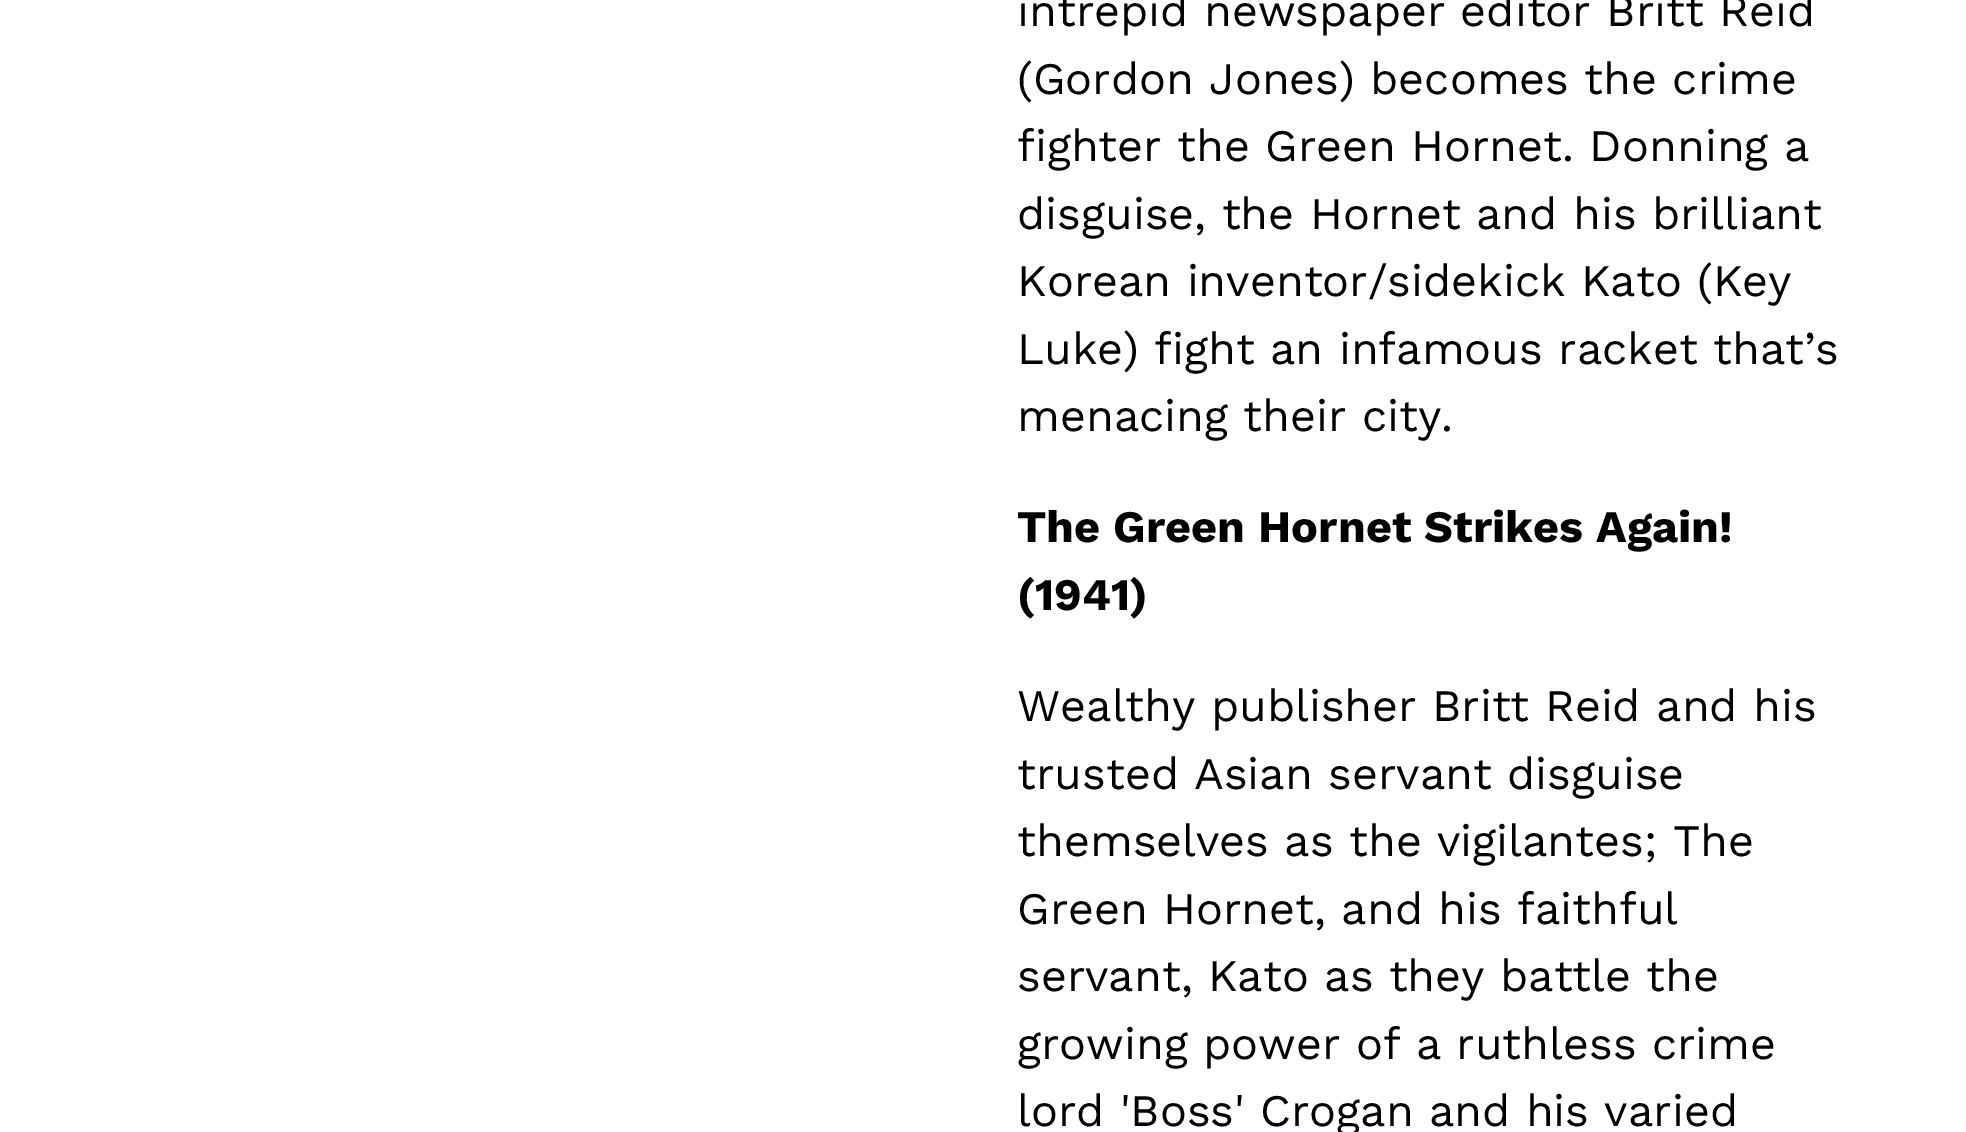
%!PS-Adobe-3.0
%%BoundingBox: 0 0 1966 1132
%%LanguageLevel: 3
%%Pages: 1
%%EndComments
%%BeginProlog
%%EndProlog
%%BeginSetup
<< /PageSize [1966 1132] >> setpagedevice
%%EndSetup
%%Page: 1 1
0 1132 translate 1 -1 scale
4 setmiterlimit
1 setgray
0 0 1966 1132 rectfill
/WorkSans-Regular [45 0 0 -45 0 0] selectfont
0 setgray
1017 26 moveto (intrepid newspaper editor Britt Reid) show
1017 94 moveto (\(Gordon Jones\) becomes the crime) show
1017 161 moveto (fighter the Green Hornet. Donning a) show
1017 229 moveto (disguise, the Hornet and his brilliant) show
1017 296 moveto (Korean inventor/sidekick Kato \(Key) show
1017 364 moveto (Luke\) fight an infamous racket that’s) show
1017 431 moveto (menacing their city.) show
/WorkSans-Bold [45 0 0 -45 0 0] selectfont
1017 542 moveto (The Green Hornet Strikes Again!) show
1017 610 moveto (\(1941\)) show
/WorkSans-Regular [45 0 0 -45 0 0] selectfont
1017 721 moveto (Wealthy publisher Britt Reid and his) show
1017 789 moveto (trusted Asian servant disguise) show
1017 856 moveto (themselves as the vigilantes; The) show
1017 924 moveto (Green Hornet, and his faithful) show
1017 991 moveto (servant, Kato as they battle the) show
1017 1059 moveto (growing power of a ruthless crime) show
1017 1126 moveto (lord 'Boss' Crogan and his varied) show
showpage
%%EOF
